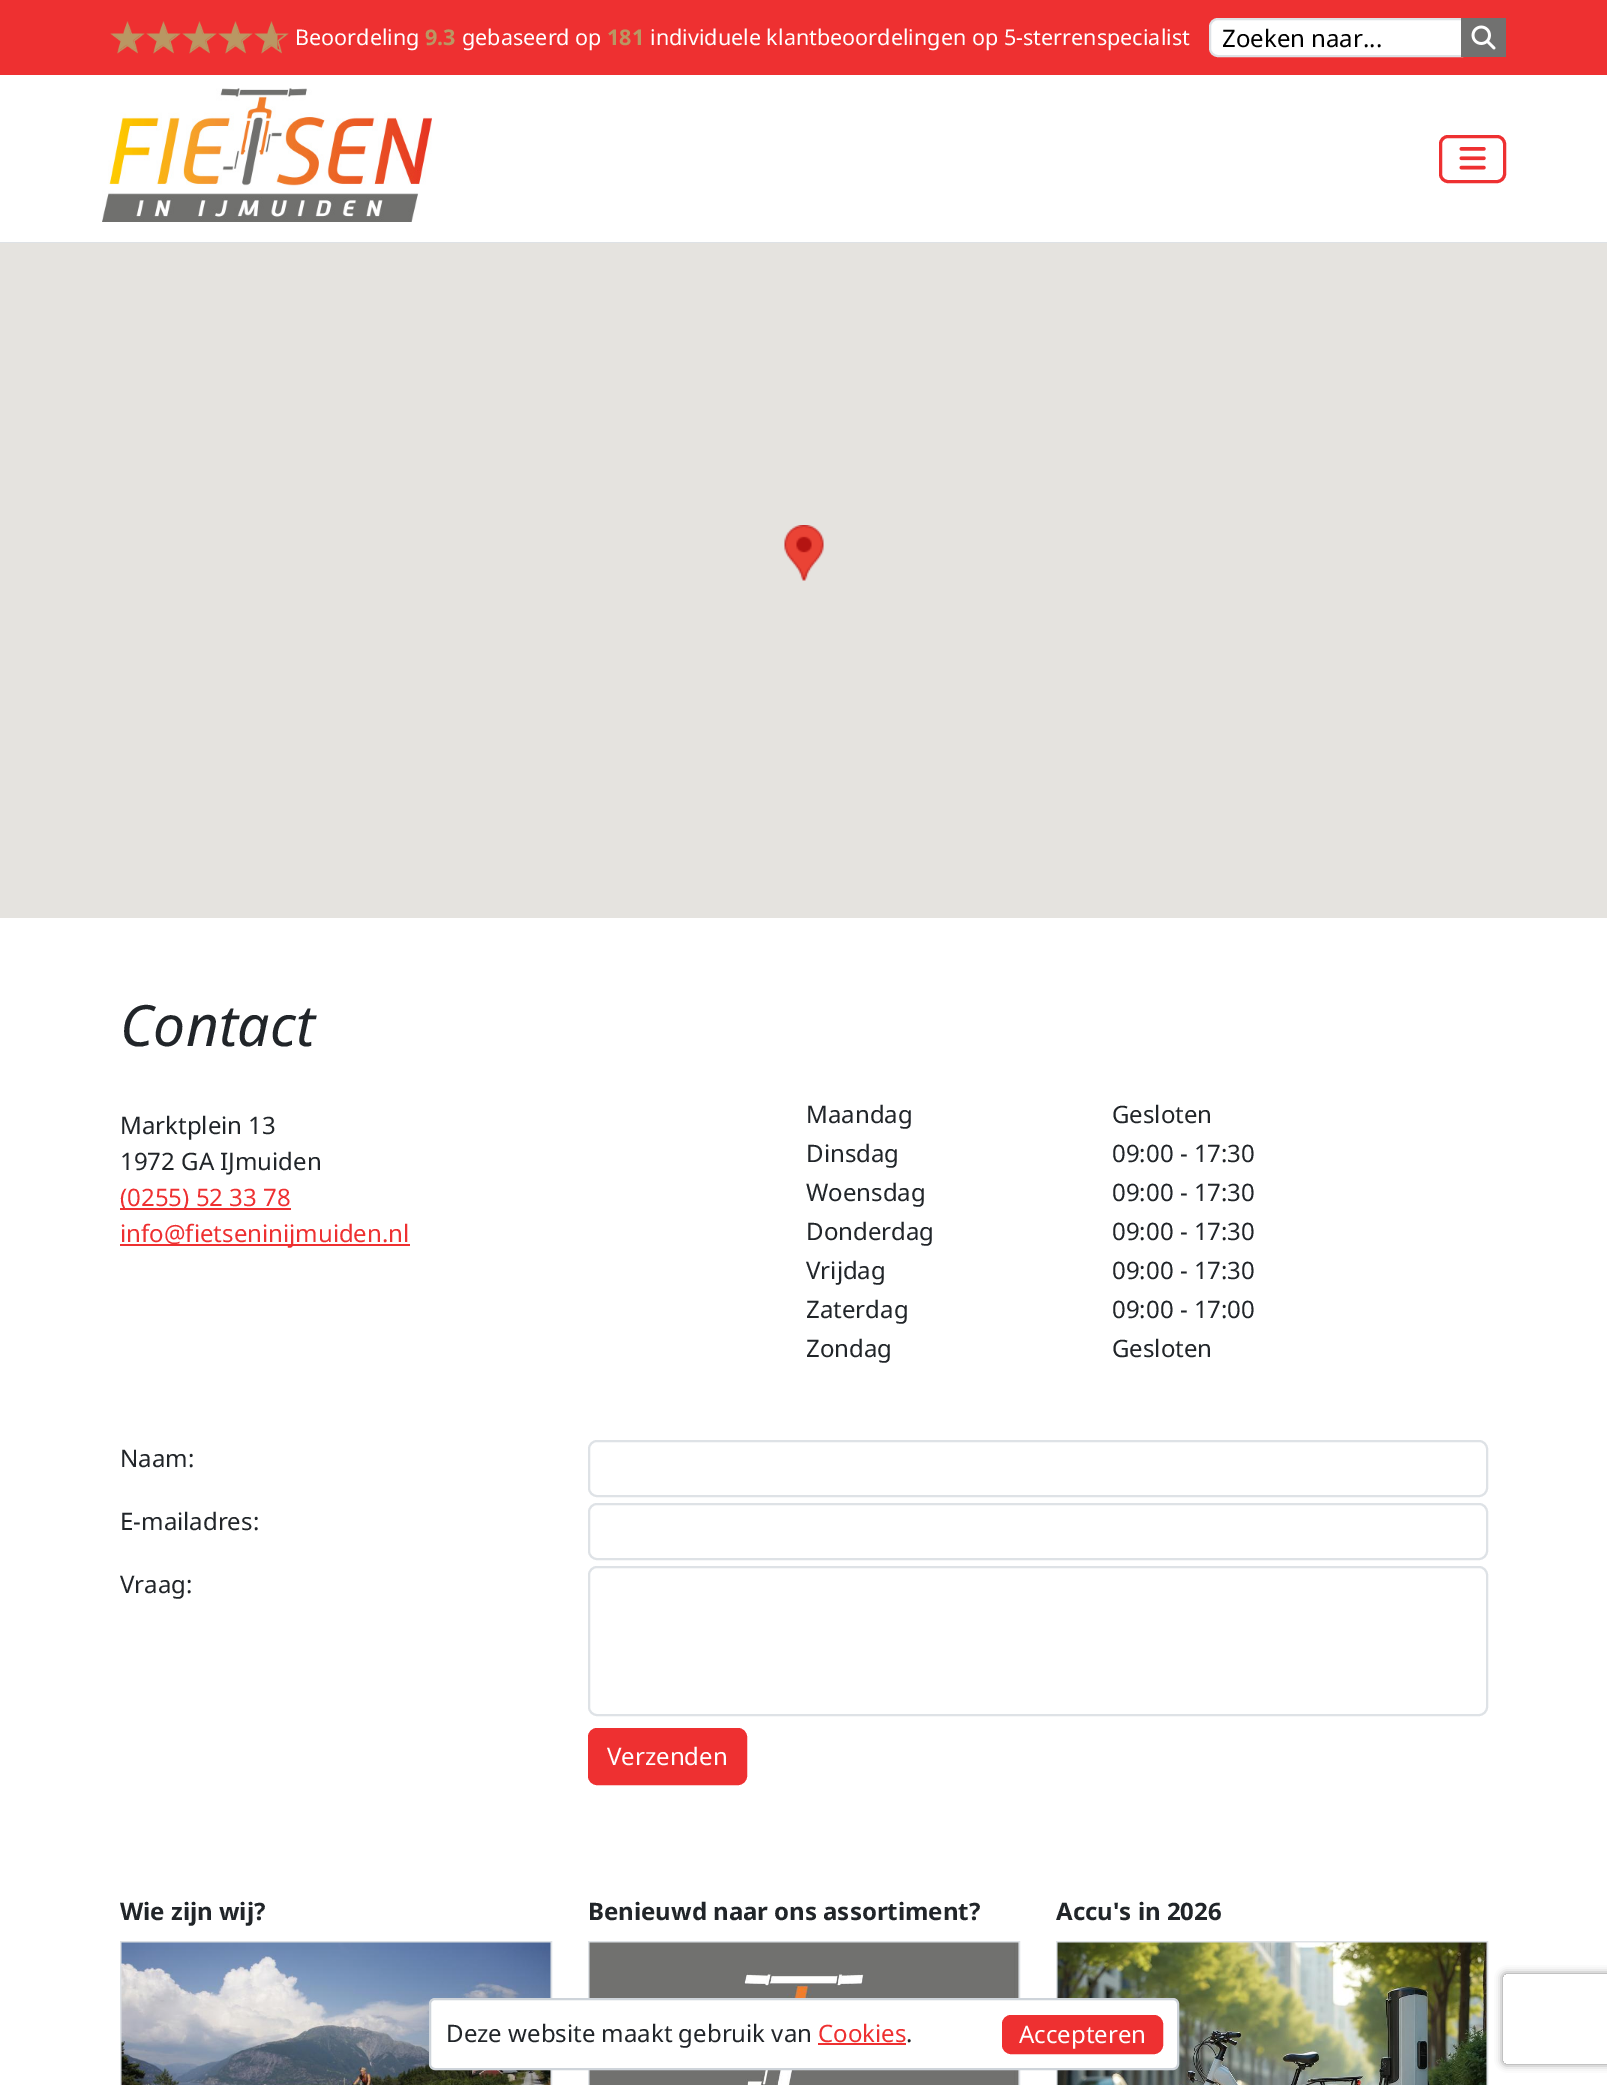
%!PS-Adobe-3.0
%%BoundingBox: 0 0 1607 2085
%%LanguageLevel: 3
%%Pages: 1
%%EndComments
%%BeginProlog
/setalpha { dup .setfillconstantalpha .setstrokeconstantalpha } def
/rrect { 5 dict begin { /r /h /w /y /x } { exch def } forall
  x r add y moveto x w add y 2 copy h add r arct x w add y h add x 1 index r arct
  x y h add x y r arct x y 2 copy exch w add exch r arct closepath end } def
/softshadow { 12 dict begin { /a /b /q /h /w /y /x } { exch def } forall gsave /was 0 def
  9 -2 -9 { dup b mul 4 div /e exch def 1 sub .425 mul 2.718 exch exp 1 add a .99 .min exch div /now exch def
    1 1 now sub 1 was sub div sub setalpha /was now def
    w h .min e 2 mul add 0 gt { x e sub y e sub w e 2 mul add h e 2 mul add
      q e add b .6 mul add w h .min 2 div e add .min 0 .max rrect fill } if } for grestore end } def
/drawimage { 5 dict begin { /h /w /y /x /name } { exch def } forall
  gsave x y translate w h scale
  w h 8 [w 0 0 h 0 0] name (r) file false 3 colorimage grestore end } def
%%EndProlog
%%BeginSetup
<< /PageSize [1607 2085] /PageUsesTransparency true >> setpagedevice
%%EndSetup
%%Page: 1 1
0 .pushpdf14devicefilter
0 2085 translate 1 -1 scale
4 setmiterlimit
1 setgray
0 0 1607 2085 rectfill
0.933 0.188 0.192 setrgbcolor
0 0 1607 75 rectfill
(images/1.raw) 110 21 179 33 drawimage
(images/2.raw) 113 23 165 28 drawimage
1 setgray
newpath 1218 19 moveto 1462 19 lineto 1462 56 lineto 1218 56 lineto 1213.5 56 1210 52.5 1210 48 curveto 1210 27 lineto 1210 22.5 1213.5 19 1218 19 curveto closepath gsave fill grestore
0.871 0.886 0.902 setrgbcolor
2 setlinewidth
stroke
0.443 0.443 0.439 setrgbcolor
1461 18 45 39 rectfill
(images/3.raw) 1471 25 25 25 drawimage
0.871 0.886 0.902 setrgbcolor
0 242 1607 1 rectfill
(images/4.raw) 102 88 330 134 drawimage
0.933 0.188 0.192 setrgbcolor
3 setlinewidth
1440.5 136.5 64 45 7.5 rrect stroke
(images/5.raw) 1459 147 27 23 drawimage
0.898 0.89 0.875 setrgbcolor
0 243 1607 675 rectfill
(images/6.raw) 784 525 40 56 drawimage
0.933 0.188 0.192 setrgbcolor
120 1208 171 2 rectfill
120 1244 290 2 rectfill
0.871 0.886 0.902 setrgbcolor
2 setlinewidth
589 1441 898 55 8 rrect stroke
589 1504 898 55 8 rrect stroke
589 1567 898 148 8 rrect stroke
0.933 0.188 0.192 setrgbcolor
589 1729 157 55 8 rrect gsave fill grestore
stroke
0.871 0.886 0.902 setrgbcolor
121 1942 430 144 rectstroke
(images/7.raw) 121 1942 430 143 drawimage
589 1942 430 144 rectstroke
(images/8.raw) 589 1942 430 143 drawimage
1057 1942 430 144 rectstroke
(images/9.raw) 1057 1942 430 143 drawimage
1 setgray
430 1999 748 70 5 rrect gsave fill grestore
0.808 0.831 0.855 setrgbcolor
stroke
0.933 0.188 0.192 setrgbcolor
818 2043 88 2 rectfill
1003 2016 159 37 8 rrect gsave fill grestore
stroke
gsave
newpath 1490 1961 moveto 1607 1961 lineto 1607 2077 lineto 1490 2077 lineto closepath 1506 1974 moveto 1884 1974 lineto 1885.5 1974 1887 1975.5 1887 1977 curveto 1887 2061 lineto 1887 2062.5 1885.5 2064 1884 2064 curveto 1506 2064 lineto 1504.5 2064 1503 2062.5 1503 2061 curveto 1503 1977 lineto 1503 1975.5 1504.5 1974 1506 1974 curveto closepath eoclip newpath
0.502 setgray
1503 1974 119 90 3 4 1 softshadow
grestore
/NotoSans-Regular [21.6 0 0 -21.6 0 0] selectfont
1 setgray
295 45 moveto (Beoordeling) show
/NotoSans-Bold [21.6 0 0 -21.6 0 0] selectfont
0.725 0.592 0.388 setrgbcolor
425 45 moveto (9.3) show
/NotoSans-Regular [21.6 0 0 -21.6 0 0] selectfont
1 setgray
462 45 moveto (gebaseerd op) show
/NotoSans-Bold [21.6 0 0 -21.6 0 0] selectfont
0.725 0.592 0.388 setrgbcolor
607 45 moveto (181) show
/NotoSans-Regular [21.6 0 0 -21.6 0 0] selectfont
1 setgray
650 45 moveto (individuele klantbeoordelingen op 5-sterrenspecialist) show
/NotoSans-Regular [24 0 0 -24 0 0] selectfont
0 setgray
1222 47 moveto (Zoeken naar...) show
/NotoSans-Italic [57 0 0 -57 0 0] selectfont
0.129 0.145 0.161 setrgbcolor
120 1046 moveto (Contact) show
/NotoSans-Regular [24 0 0 -24 0 0] selectfont
120 1134 moveto (Marktplein 13) show
120 1170 moveto (1972 GA IJmuiden) show
0.933 0.188 0.192 setrgbcolor
120 1206 moveto (\(0255\) 52 33 78) show
120 1242 moveto (info@fietseninijmuiden.nl) show
0.129 0.145 0.161 setrgbcolor
806 1123 moveto (Maandag) show
1112 1123 moveto (Gesloten) show
806 1162 moveto (Dinsdag) show
1112 1162 moveto (09:00 - 17:30) show
806 1201 moveto (Woensdag) show
1112 1201 moveto (09:00 - 17:30) show
806 1240 moveto (Donderdag) show
1112 1240 moveto (09:00 - 17:30) show
806 1279 moveto (Vrijdag) show
1112 1279 moveto (09:00 - 17:30) show
806 1318 moveto (Zaterdag) show
1112 1318 moveto (09:00 - 17:00) show
806 1357 moveto (Zondag) show
1112 1357 moveto (Gesloten) show
120 1467 moveto (Naam:) show
120 1530 moveto (E-mailadres:) show
120 1593 moveto (Vraag:) show
1 setgray
607 1765 moveto (Verzenden) show
/NotoSans-Bold [24 0 0 -24 0 0] selectfont
0.129 0.145 0.161 setrgbcolor
120 1920 moveto (Wie zijn wij?) show
588 1920 moveto (Benieuwd naar ons assortiment?) show
1056 1920 moveto (Accu's in 2026) show
/NotoSans-Regular [24 0 0 -24 0 0] selectfont
446 2042 moveto (Deze website maakt gebruik van) show
0.933 0.188 0.192 setrgbcolor
818 2042 moveto (Cookies) show
0.129 0.145 0.161 setrgbcolor
906 2042 moveto (.) show
1 setgray
1019 2043 moveto (Accepteren) show
.poppdf14devicefilter showpage
%%EOF
